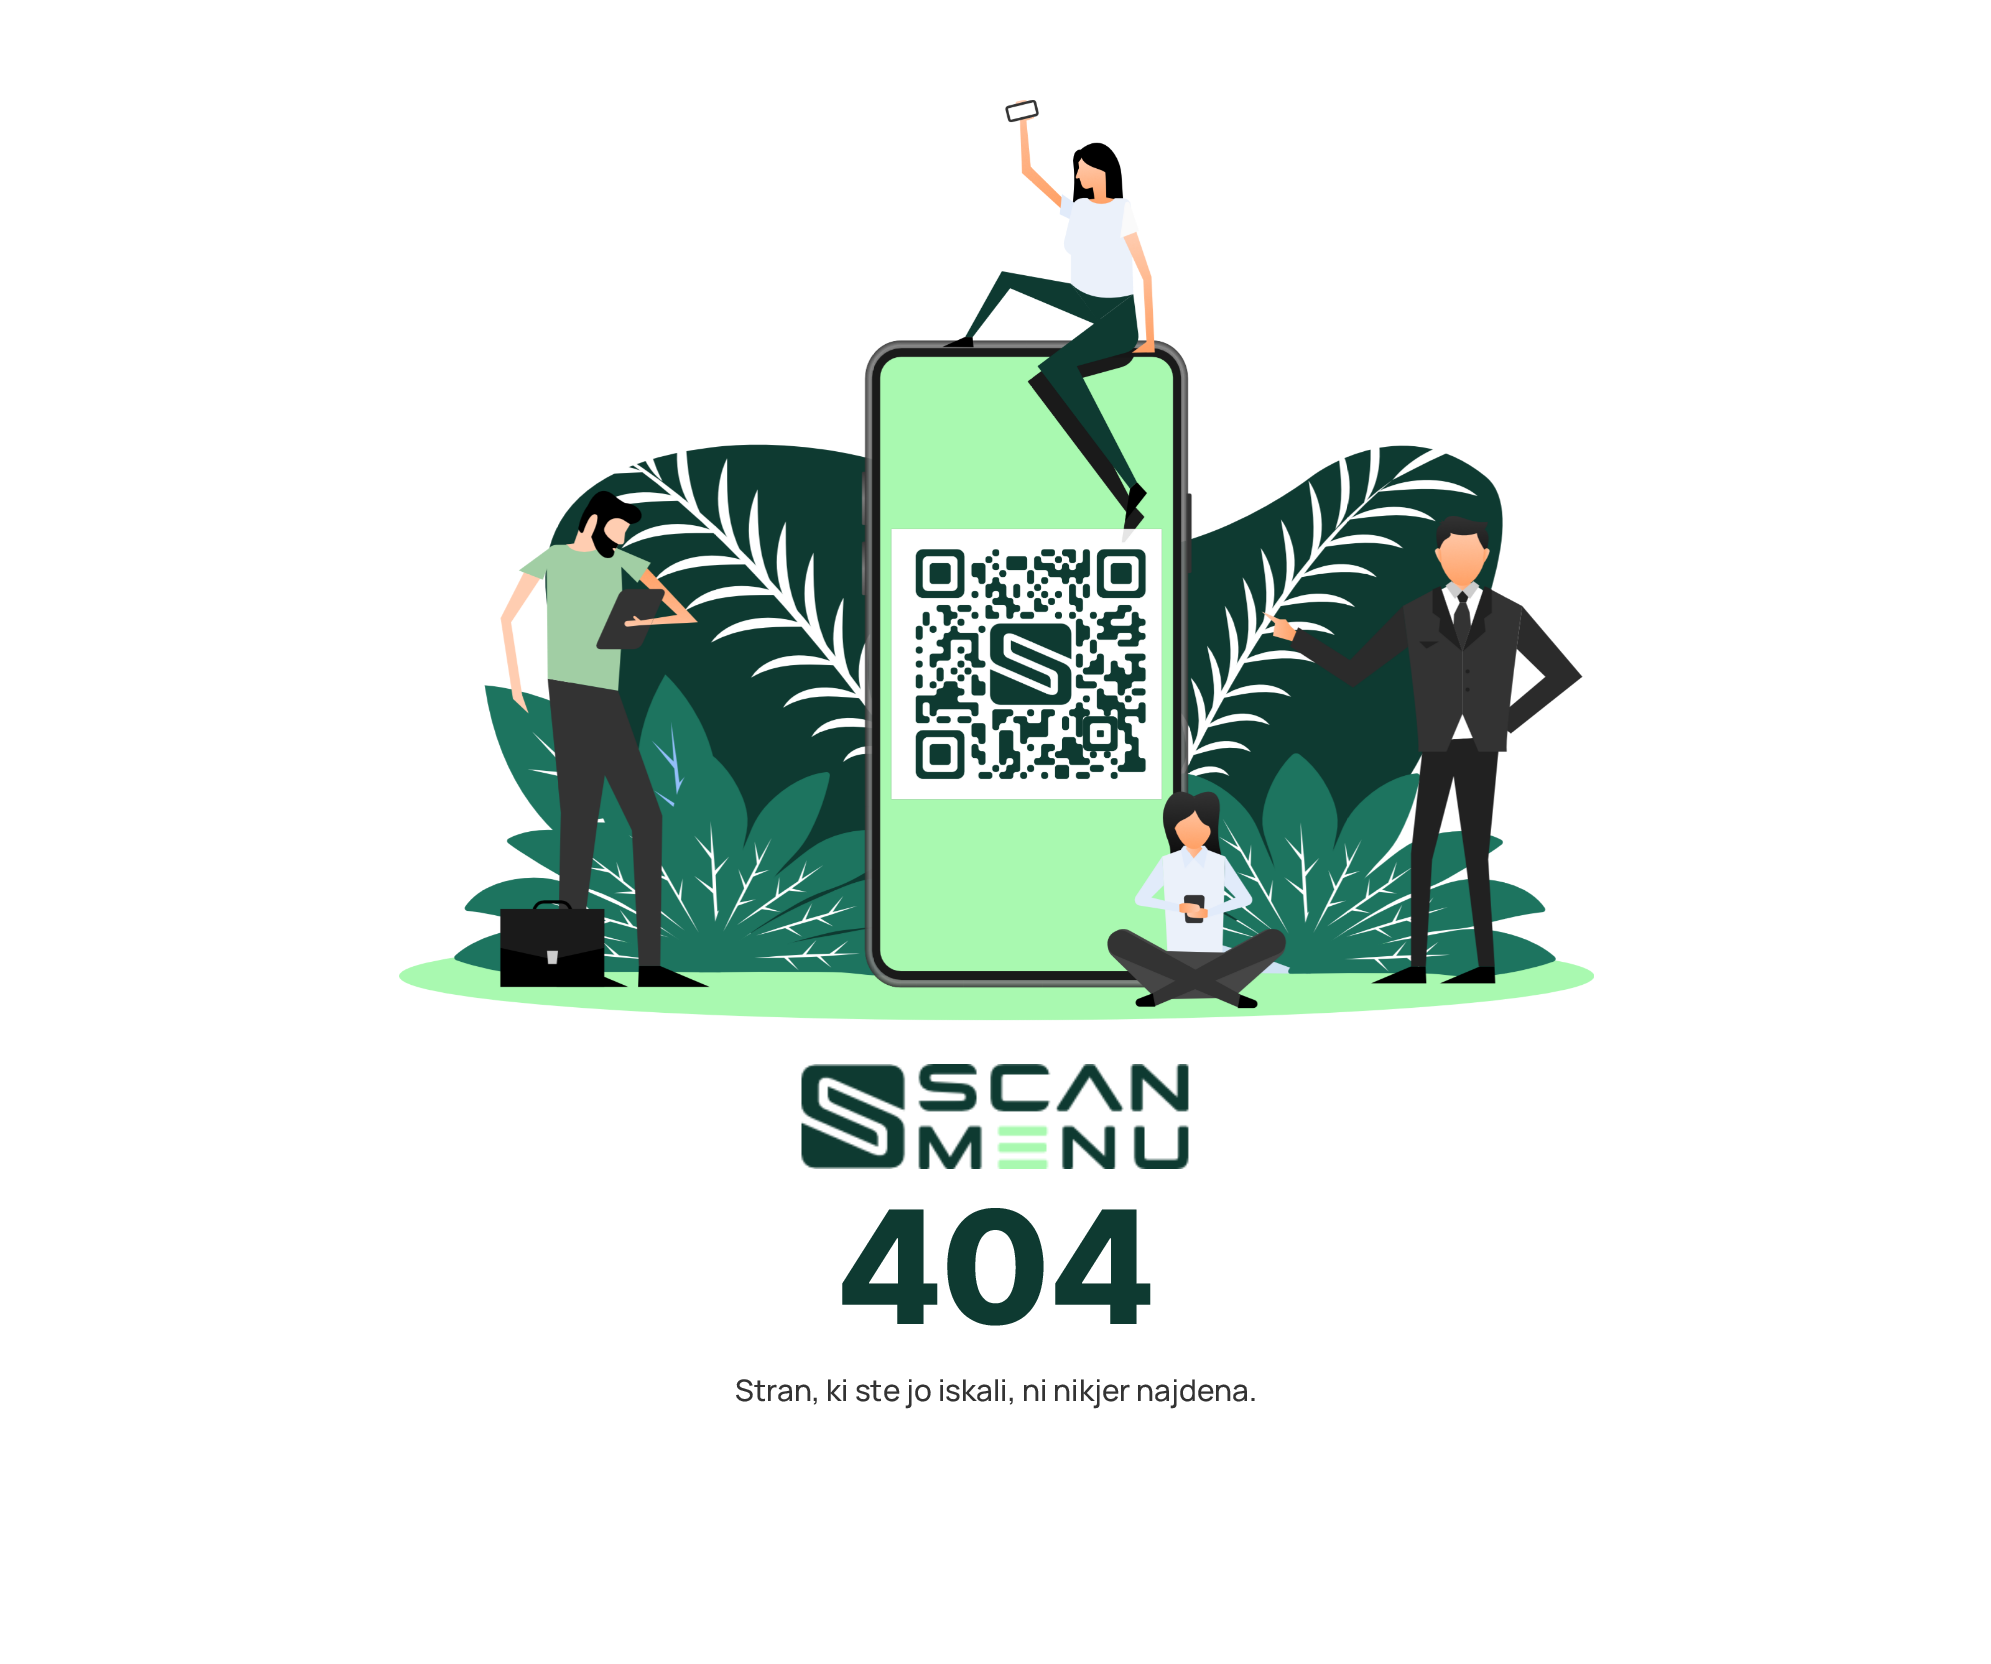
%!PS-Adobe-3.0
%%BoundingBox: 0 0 1991 1664
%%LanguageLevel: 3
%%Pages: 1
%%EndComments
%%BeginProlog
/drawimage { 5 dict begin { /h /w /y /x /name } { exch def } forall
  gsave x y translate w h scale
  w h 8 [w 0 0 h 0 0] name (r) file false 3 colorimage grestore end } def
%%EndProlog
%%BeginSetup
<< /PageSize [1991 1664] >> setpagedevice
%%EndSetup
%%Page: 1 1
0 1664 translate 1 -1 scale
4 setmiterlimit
1 setgray
0 0 1991 1664 rectfill
(images/1.raw) 399 100 1195 921 drawimage
(images/2.raw) 801 1064 388 105 drawimage
/Inter-ExtraBold [157.5 0 0 -157.5 0 0] selectfont
0.055 0.227 0.192 setrgbcolor
835 1324 moveto -2 0 (404) ashow
/Manrope-Medium [29.75 0 0 -29.75 0 0] selectfont
0.2 setgray
735 1401 moveto (Stran, ki ste jo iskali, ni nikjer najdena.) show
showpage
%%EOF
